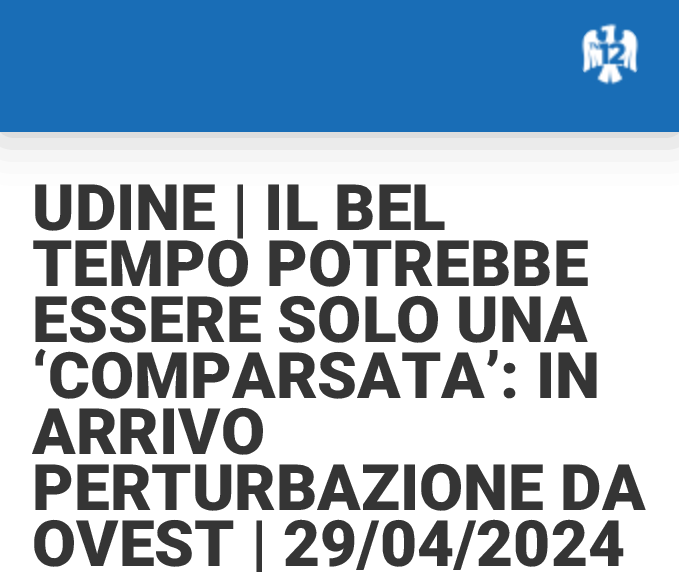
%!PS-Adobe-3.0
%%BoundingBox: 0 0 679 572
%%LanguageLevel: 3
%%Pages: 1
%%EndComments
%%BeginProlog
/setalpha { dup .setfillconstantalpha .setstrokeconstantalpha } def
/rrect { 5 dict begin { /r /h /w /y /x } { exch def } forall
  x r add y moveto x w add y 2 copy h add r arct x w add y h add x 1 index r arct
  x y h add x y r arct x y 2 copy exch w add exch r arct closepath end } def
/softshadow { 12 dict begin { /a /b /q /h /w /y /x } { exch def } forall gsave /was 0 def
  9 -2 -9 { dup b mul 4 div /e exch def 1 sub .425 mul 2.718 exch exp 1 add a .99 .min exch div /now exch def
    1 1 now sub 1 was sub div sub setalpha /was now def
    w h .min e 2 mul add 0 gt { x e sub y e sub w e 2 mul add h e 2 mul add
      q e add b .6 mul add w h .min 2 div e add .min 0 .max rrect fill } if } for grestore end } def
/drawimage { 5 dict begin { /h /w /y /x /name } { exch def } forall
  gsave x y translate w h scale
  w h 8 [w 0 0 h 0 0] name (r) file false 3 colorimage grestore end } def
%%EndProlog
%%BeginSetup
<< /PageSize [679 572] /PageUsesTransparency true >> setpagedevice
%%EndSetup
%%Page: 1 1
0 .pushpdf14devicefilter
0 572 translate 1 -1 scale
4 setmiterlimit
1 setgray
0 0 679 572 rectfill
0 setgray
0 0 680 132 0 24 0.25 softshadow
0.098 0.427 0.714 setrgbcolor
0 0 679 132 rectfill
(images/1.raw) 581 23 58 62 drawimage
/Roboto-Black [64 0 0 -64 0 0] selectfont
0.208 setgray
32 230 moveto (UDINE | IL BEL) show
32 286 moveto (TEMPO POTREBBE) show
32 342 moveto (ESSERE SOLO UNA) show
32 398 moveto (‘COMPARSATA’: IN) show
32 454 moveto (ARRIVO) show
32 510 moveto (PERTURBAZIONE DA) show
32 566 moveto (OVEST | 29/04/2024) show
.poppdf14devicefilter showpage
%%EOF
